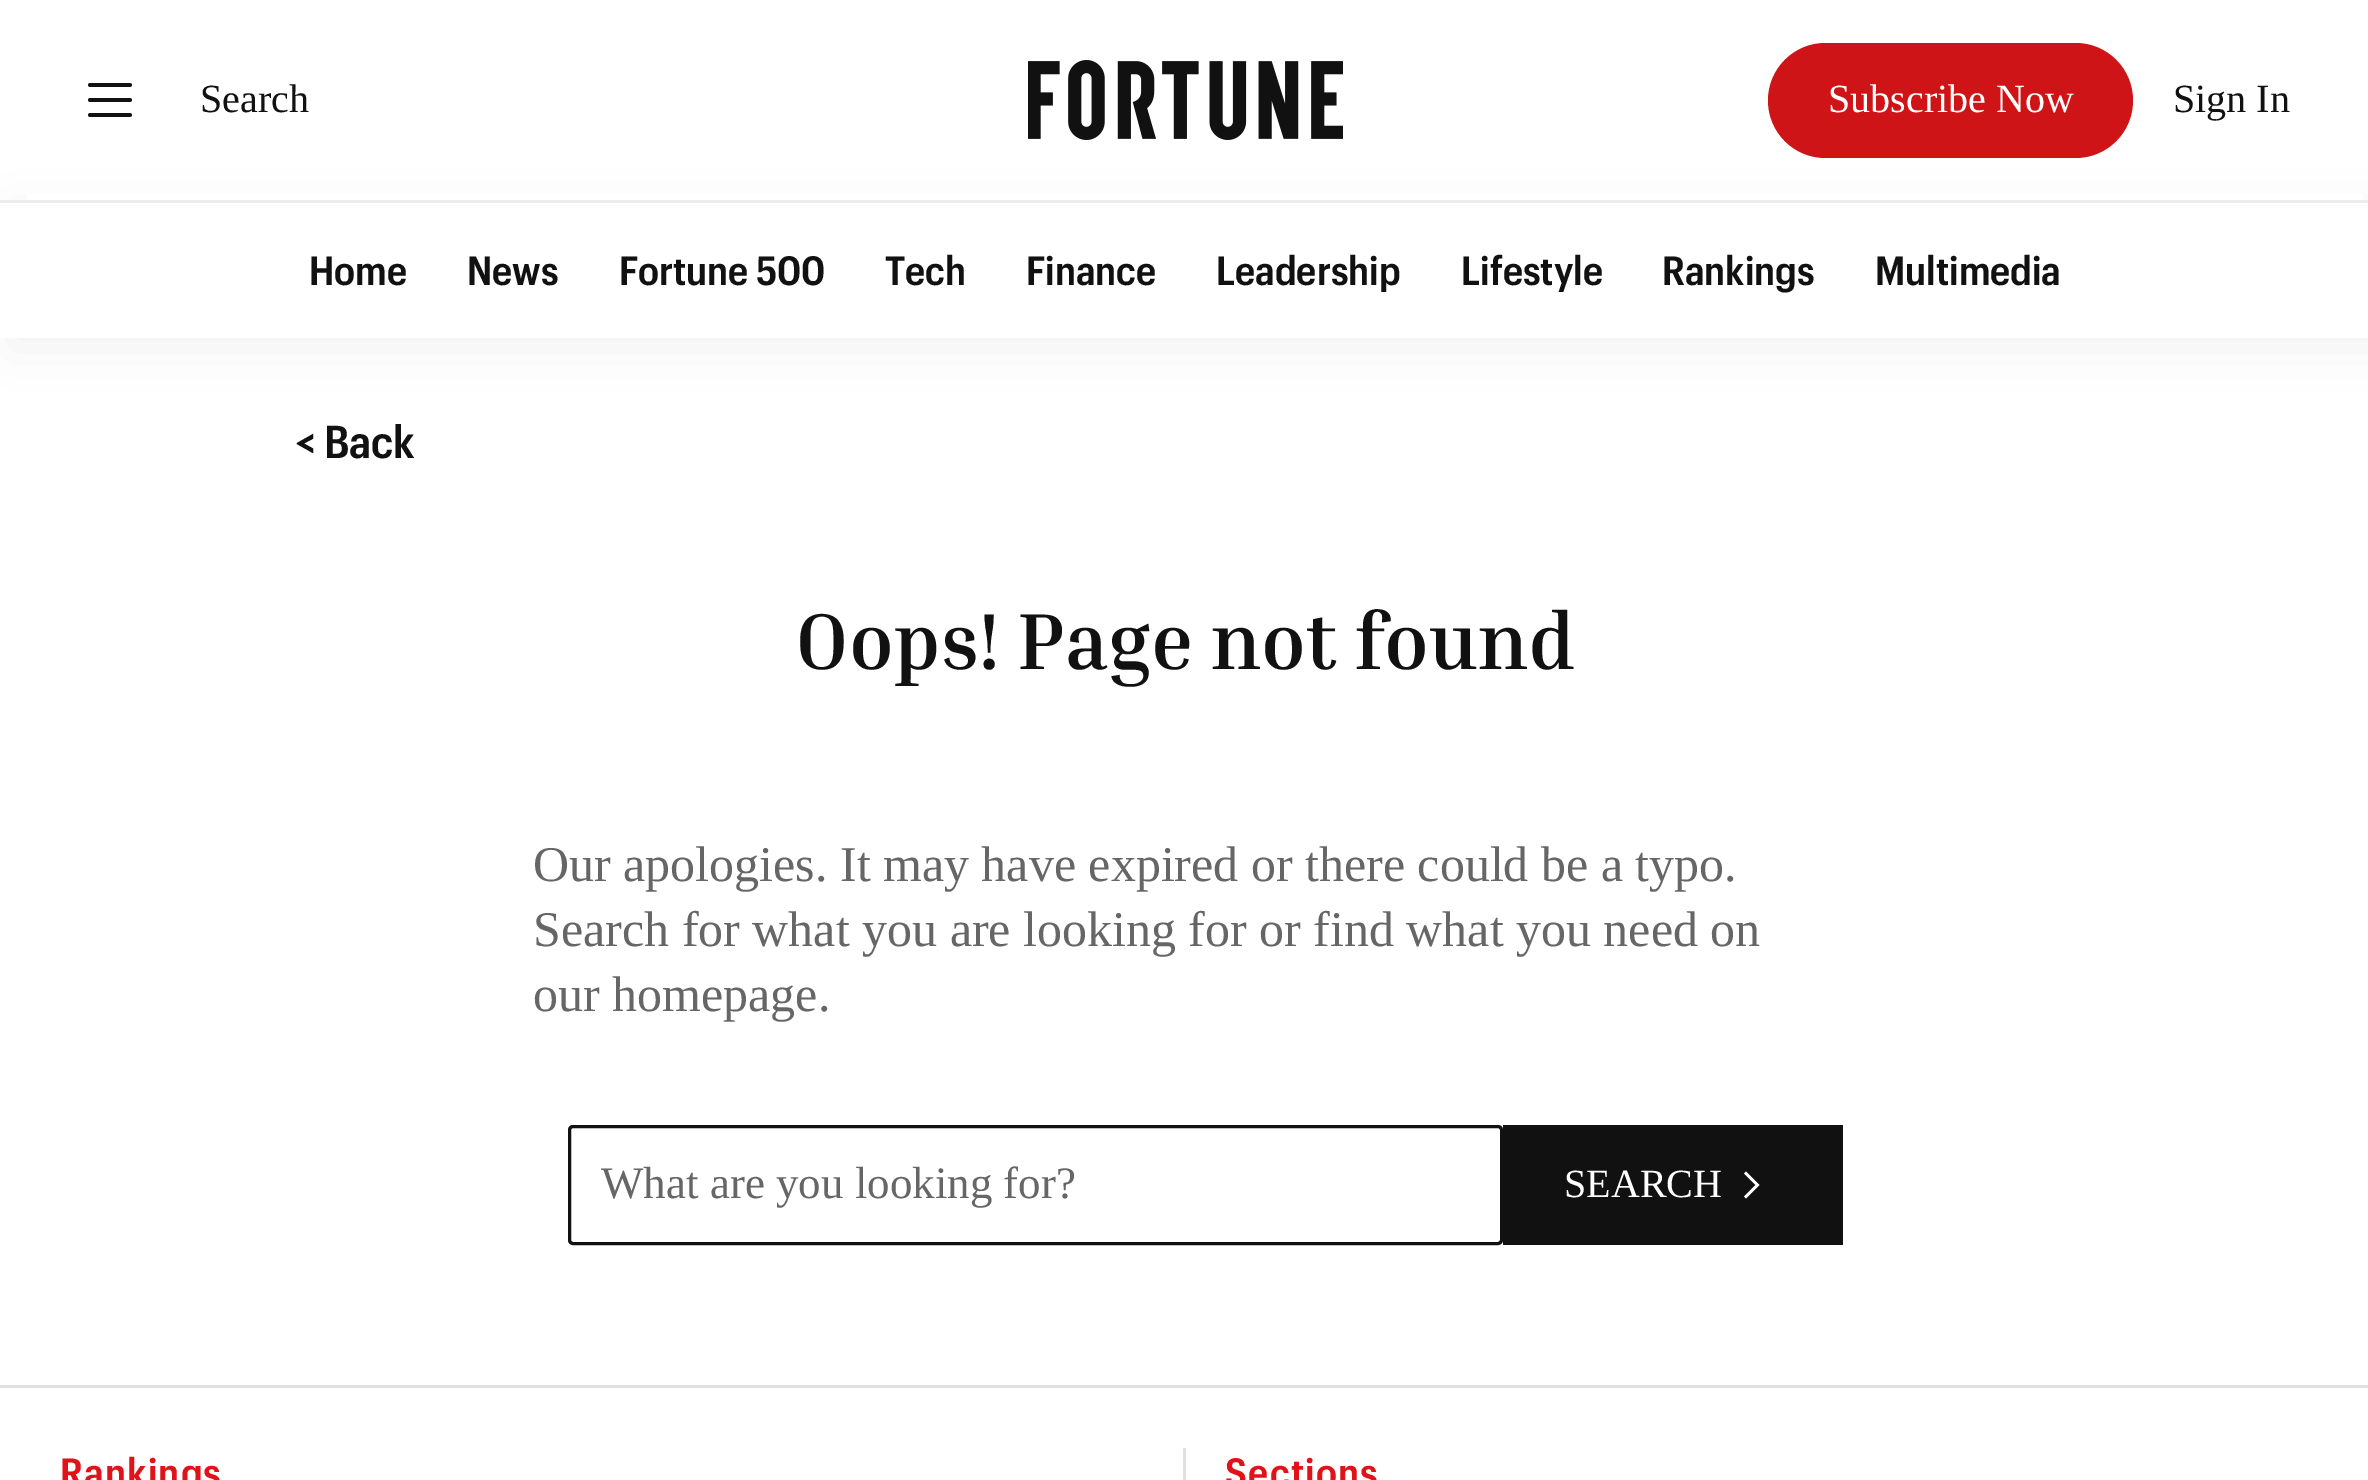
%!PS-Adobe-3.0
%%BoundingBox: 0 0 2368 1480
%%LanguageLevel: 3
%%Pages: 1
%%EndComments
%%BeginProlog
/setalpha { dup .setfillconstantalpha .setstrokeconstantalpha } def
/rrect { 5 dict begin { /r /h /w /y /x } { exch def } forall
  x r add y moveto x w add y 2 copy h add r arct x w add y h add x 1 index r arct
  x y h add x y r arct x y 2 copy exch w add exch r arct closepath end } def
/softshadow { 12 dict begin { /a /b /q /h /w /y /x } { exch def } forall gsave /was 0 def
  9 -2 -9 { dup b mul 4 div /e exch def 1 sub .425 mul 2.718 exch exp 1 add a .99 .min exch div /now exch def
    1 1 now sub 1 was sub div sub setalpha /was now def
    w h .min e 2 mul add 0 gt { x e sub y e sub w e 2 mul add h e 2 mul add
      q e add b .6 mul add w h .min 2 div e add .min 0 .max rrect fill } if } for grestore end } def
/drawimage { 5 dict begin { /h /w /y /x /name } { exch def } forall
  gsave x y translate w h scale
  w h 8 [w 0 0 h 0 0] name (r) file false 3 colorimage grestore end } def
%%EndProlog
%%BeginSetup
<< /PageSize [2368 1480] /PageUsesTransparency true >> setpagedevice
%%EndSetup
%%Page: 1 1
0 .pushpdf14devicefilter
0 1480 translate 1 -1 scale
4 setmiterlimit
1 setgray
0 0 2368 1480 rectfill
0.067 setgray
10 213 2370 135 0 25 0.05 softshadow
1 setgray
27 194 2336 6 rectfill
0.929 setgray
0 200 2368 3 rectfill
0.067 setgray
3.8 setlinewidth
1 setlinecap
1 setlinejoin
newpath 90 100 moveto 130 100 lineto 90 85 moveto 130 85 lineto 90 115 moveto 130 115 lineto stroke
(images/1.raw) 1028 60 315 80 drawimage
0.812 0.078 0.09 setrgbcolor
1768 43 365 115 57.5 rrect fill
1 setgray
0 203 2368 135 rectfill
0.067 setgray
3 setlinewidth
0 setlinecap
0 setlinejoin
569.5 1126.5 932 117 3.5 rrect stroke
1503 1125 340 120 rectfill
1 setgray
newpath 1755.5 1185 moveto 1744 1173.5 lineto 1746 1171.5 lineto 1759.5 1185 lineto 1746 1198.5 lineto 1744 1196.5 lineto closepath fill
0.878 setgray
0 1385 2368 3 rectfill
1183 1448 3 32 rectfill
/LiberationSerif-Regular [40 0 0 -40 0 0] selectfont
0.067 setgray
200 112 moveto (Search) show
1 setgray
1828 112 moveto (Subscribe Now) show
0.067 setgray
2173 112 moveto (Sign In) show
/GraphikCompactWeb-SemiBold [40 0 0 -40 0 0] selectfont
309 285 moveto (Home) show
467 285 moveto (News) show
619 285 moveto (Fortune 500) show
885 285 moveto (Tech) show
1026 285 moveto (Finance) show
1216 285 moveto (Leadership) show
1461 285 moveto (Lifestyle) show
1662 285 moveto (Rankings) show
1875 285 moveto (Multimedia) show
/GraphikCompactWeb-SemiBold [45 0 0 -45 0 0] selectfont
295 458 moveto (< Back) show
/InriaSerif-Bold [80 0 0 -80 0 0] selectfont
795 669 moveto (Oops! Page not found) show
/LiberationSerif-Regular [50 0 0 -50 0 0] selectfont
0.4 setgray
533 881 moveto (Our apologies. It may have expired or there could be a typo.) show
533 946 moveto (Search for what you are looking for or find what you need on) show
533 1011 moveto (our homepage.) show
/LiberationSerif-Regular [45 0 0 -45 0 0] selectfont
601 1198 moveto (What are you looking for?) show
/LiberationSerif-Regular [40 0 0 -40 0 0] selectfont
1 setgray
1564 1197 moveto (SEARCH) show
/GraphikCompactWeb-SemiBold [40 0 0 -40 0 0] selectfont
0.886 0.071 0.098 setrgbcolor
60 1487 moveto 1.25 0 (Rankings) ashow
1225 1487 moveto 1.25 0 (Sections) ashow
.poppdf14devicefilter showpage
%%EOF
